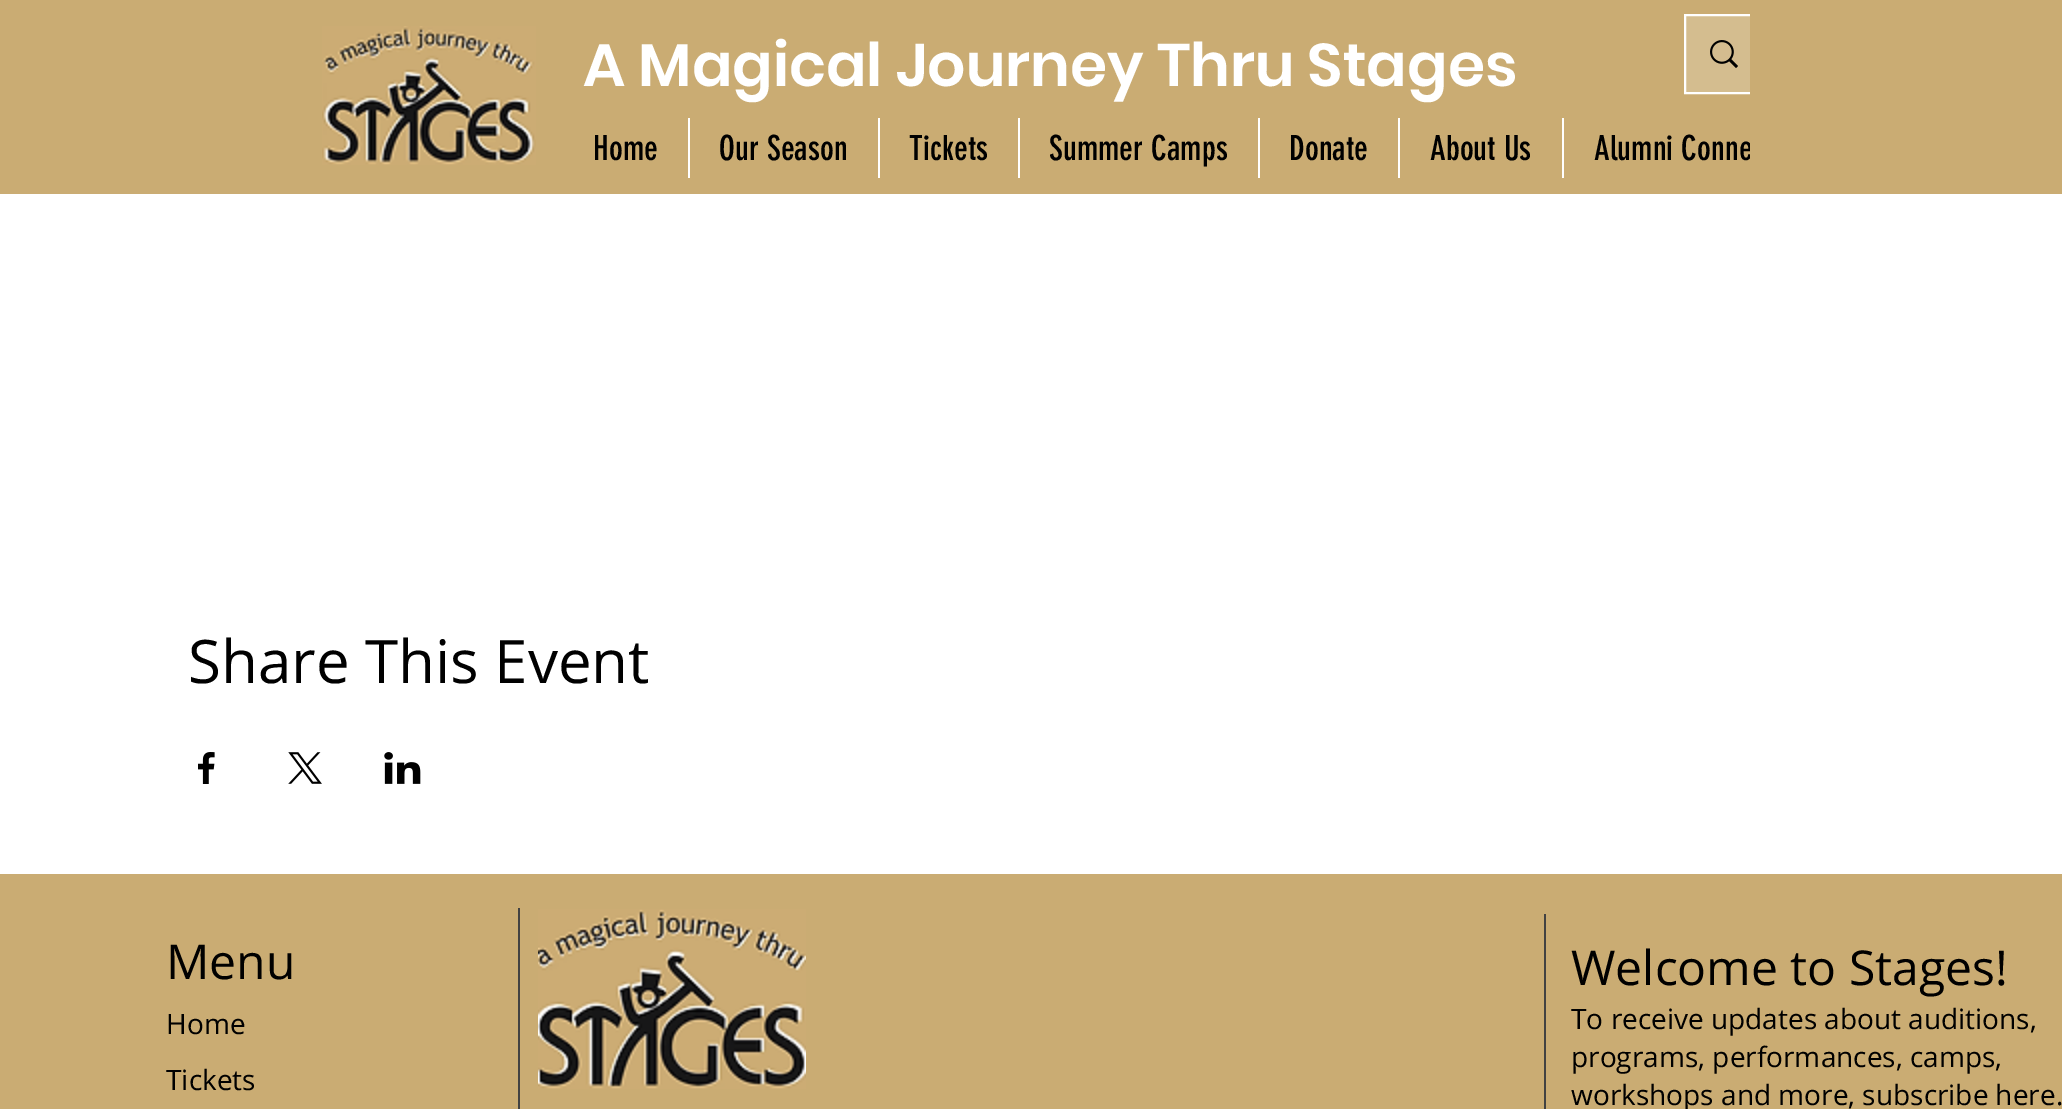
%!PS-Adobe-3.0
%%BoundingBox: 0 0 2062 1109
%%LanguageLevel: 3
%%Pages: 1
%%EndComments
%%BeginProlog
/drawimage { 5 dict begin { /h /w /y /x /name } { exch def } forall
  gsave x y translate w h scale
  w h 8 [w 0 0 h 0 0] name (r) file false 3 colorimage grestore end } def
%%EndProlog
%%BeginSetup
<< /PageSize [2062 1109] >> setpagedevice
%%EndSetup
%%Page: 1 1
0 1109 translate 1 -1 scale
4 setmiterlimit
1 setgray
0 0 2062 1109 rectfill
0.792 0.675 0.451 setrgbcolor
0 0 1750 194 rectfill
0.831 0.741 0.561 setrgbcolor
1686 16 64 76 rectfill
(images/1.raw) 322 26 214 139 drawimage
1 setgray
2 setlinewidth
1685 15 358 78 rectstroke
(images/2.raw) 1710 40 28 28 drawimage
688 118 2 60 rectfill
878 118 2 60 rectfill
1018 118 2 60 rectfill
1258 118 2 60 rectfill
1398 118 2 60 rectfill
1562 118 2 60 rectfill
(images/3.raw) 198 752 17 32 drawimage
(images/4.raw) 288 752 34 32 drawimage
(images/5.raw) 384 752 37 32 drawimage
0.792 0.675 0.451 setrgbcolor
0 874 2062 235 rectfill
0.259 setgray
518 908 2 201 rectfill
(images/6.raw) 538 909 268 180 drawimage
1544 914 2 195 rectfill
/Poppins-SemiBold [60 0 0 -60 0 0] selectfont
1 setgray
583 86 moveto (A Magical Journey Thru Stages) show
/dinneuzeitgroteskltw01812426-Regular [34 0 0 -34 0 0] selectfont
0 setgray
593 160 moveto (Home) show
719 160 moveto (Our Season) show
909 160 moveto (Tickets) show
1049 160 moveto (Summer Camps) show
1289 160 moveto (Donate) show
1430 160 moveto (About Us) show
1594 160 moveto (Alumni Conne) show
0.792 0.675 0.451 setrgbcolor
1750 0 312 194 rectfill
/OpenSans-Regular [60 0 0 -60 0 0] selectfont
0 setgray
188 683 moveto (Share This Event) show
/OpenSans-Regular [48 0 0 -48 0 0] selectfont
166 979 moveto (Menu) show
/OpenSans-Regular [28 0 0 -28 0 0] selectfont
166 1034 moveto (Home) show
166 1090 moveto (Tickets) show
/OpenSans-Regular [48 0 0 -48 0 0] selectfont
1571 985 moveto (Welcome to Stages!) show
/OpenSans-Regular [28 0 0 -28 0 0] selectfont
1571 1029 moveto (To receive updates about auditions,) show
1571 1067 moveto (programs, performances, camps,) show
1571 1105 moveto (workshops and more, subscribe here.) show
showpage
%%EOF
